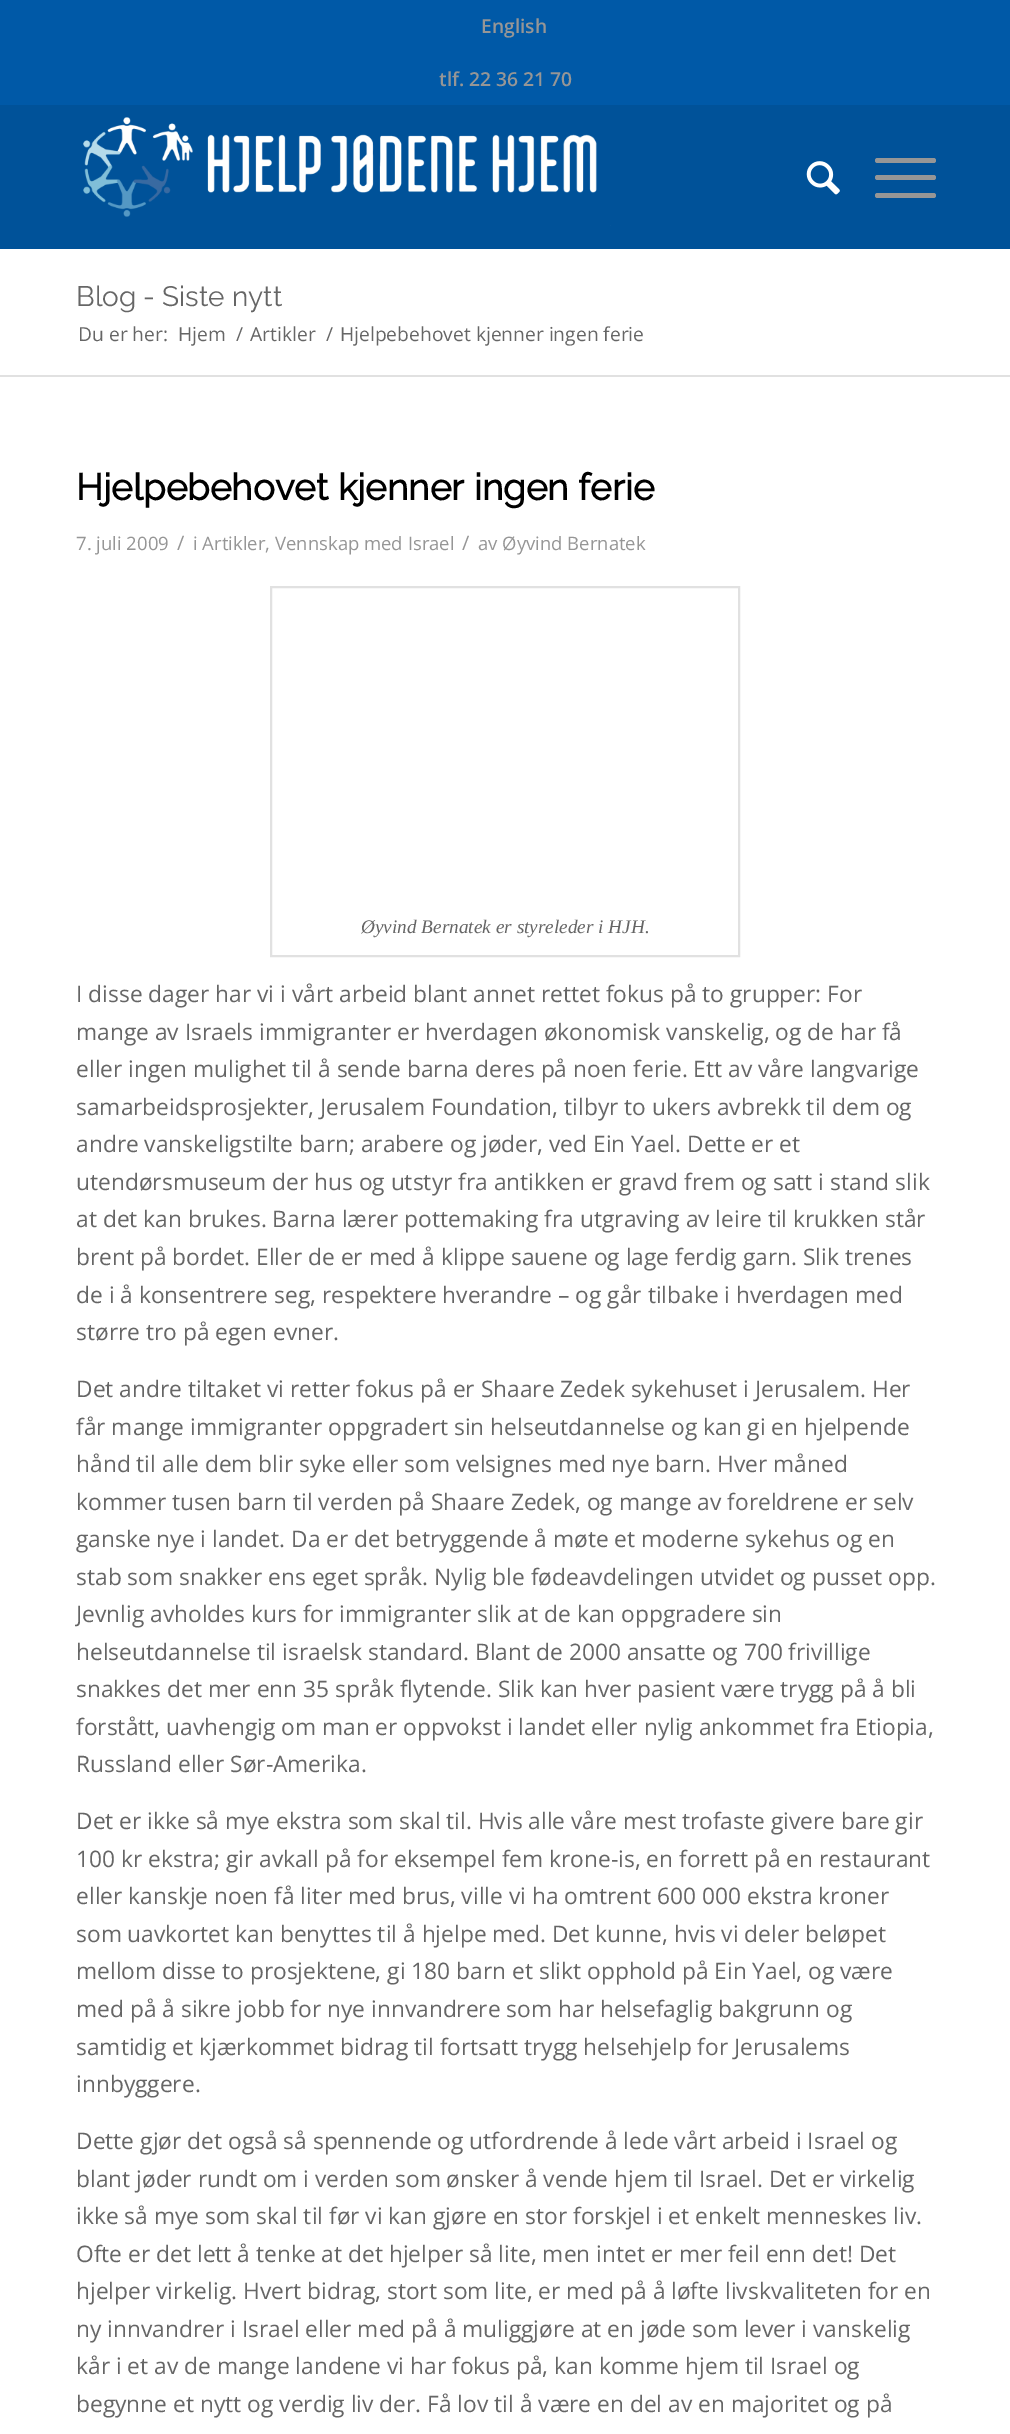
%!PS-Adobe-3.0
%%BoundingBox: 0 0 1010 2434
%%LanguageLevel: 3
%%Pages: 1
%%EndComments
%%BeginProlog
/rrect { 5 dict begin { /r /h /w /y /x } { exch def } forall
  x r add y moveto x w add y 2 copy h add r arct x w add y h add x 1 index r arct
  x y h add x y r arct x y 2 copy exch w add exch r arct closepath end } def
/drawimage { 5 dict begin { /h /w /y /x /name } { exch def } forall
  gsave x y translate w h scale
  w h 8 [w 0 0 h 0 0] name (r) file false 3 colorimage grestore end } def
%%EndProlog
%%BeginSetup
<< /PageSize [1010 2434] >> setpagedevice
%%EndSetup
%%Page: 1 1
0 2434 translate 1 -1 scale
4 setmiterlimit
1 setgray
0 0 1010 2434 rectfill
0 0.349 0.655 setrgbcolor
0 0 1010 105 rectfill
0 0.322 0.6 setrgbcolor
0 105 1010 144 rectfill
(images/1.raw) 83 117 528 109 drawimage
(images/2.raw) 806 161 34 34 drawimage
0.588 setgray
875 175 61 5 2.5 rrect fill
875 158 61 5 2.5 rrect fill
875 193 61 5 2.5 rrect fill
0.882 setgray
0 375 1010 2 rectfill
2 setlinewidth
271 587 468 369 rectstroke
/OpenSans-SemiBold [19.25 0 0 -19.25 0 0] selectfont
0.588 setgray
481 33 moveto (English) show
439 86 moveto (tlf. 22 36 21 70) show
/Raleway-Thin [28 0 0 -28 0 0] selectfont
0.4 setgray
76 306 moveto (Blog - Siste nytt) show
/OpenSans-Regular [19.25 0 0 -19.25 0 0] selectfont
78 341 moveto (Du er her:) show
178 341 moveto (Hjem) show
236 341 moveto (/) show
250 341 moveto (Artikler) show
326 341 moveto (/) show
340 341 moveto (Hjelpebehovet kjenner ingen ferie) show
/Raleway-Bold [36.75 0 0 -36.75 0 0] selectfont
0 setgray
76 500 moveto (Hjelpebehovet kjenner ingen ferie) show
/OpenSans-Regular [18.5 0 0 -18.5 0 0] selectfont
0.588 setgray
76 550 moveto (7. juli 2009) show
/OpenSans-Regular [20 0 0 -20 0 0] selectfont
177 550 moveto (/) show
/OpenSans-Regular [18.5 0 0 -18.5 0 0] selectfont
193 550 moveto (i Artikler, Vennskap med Israel) show
/OpenSans-Regular [20 0 0 -20 0 0] selectfont
462 550 moveto (/) show
/OpenSans-Regular [18.5 0 0 -18.5 0 0] selectfont
478 550 moveto (av Øyvind Bernatek) show
/LiberationSerif-Italic [19.25 0 0 -19.25 0 0] selectfont
0.4 setgray
361 933 moveto (Øyvind Bernatek er styreleder i HJH.) show
/OpenSans-Regular [22.75 0 0 -22.75 0 0] selectfont
76 1002 moveto (I disse dager har vi i vårt arbeid blant annet rettet fokus på to grupper: For) show
76 1040 moveto (mange av Israels immigranter er hverdagen økonomisk vanskelig, og de har få) show
76 1077 moveto (eller ingen mulighet til å sende barna deres på noen ferie. Ett av våre langvarige) show
76 1115 moveto (samarbeidsprosjekter, Jerusalem Foundation, tilbyr to ukers avbrekk til dem og) show
76 1152 moveto (andre vanskeligstilte barn; arabere og jøder, ved Ein Yael. Dette er et) show
76 1190 moveto (utendørsmuseum der hus og utstyr fra antikken er gravd frem og satt i stand slik) show
76 1227 moveto (at det kan brukes. Barna lærer pottemaking fra utgraving av leire til krukken står) show
76 1265 moveto (brent på bordet. Eller de er med å klippe sauene og lage ferdig garn. Slik trenes) show
76 1303 moveto (de i å konsentrere seg, respektere hverandre – og går tilbake i hverdagen med) show
76 1340 moveto (større tro på egen evner.) show
76 1397 moveto (Det andre tiltaket vi retter fokus på er Shaare Zedek sykehuset i Jerusalem. Her) show
76 1435 moveto (får mange immigranter oppgradert sin helseutdannelse og kan gi en hjelpende) show
76 1472 moveto (hånd til alle dem blir syke eller som velsignes med nye barn. Hver måned) show
76 1510 moveto (kommer tusen barn til verden på Shaare Zedek, og mange av foreldrene er selv) show
76 1547 moveto (ganske nye i landet. Da er det betryggende å møte et moderne sykehus og en) show
76 1585 moveto (stab som snakker ens eget språk. Nylig ble fødeavdelingen utvidet og pusset opp.) show
gsave
75 464 861 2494 rectclip
76 1622 moveto (Jevnlig avholdes kurs for immigranter slik at de kan oppgradere sin) show
grestore
76 1660 moveto (helseutdannelse til israelsk standard. Blant de 2000 ansatte og 700 frivillige) show
76 1697 moveto (snakkes det mer enn 35 språk flytende. Slik kan hver pasient være trygg på å bli) show
76 1735 moveto (forstått, uavhengig om man er oppvokst i landet eller nylig ankommet fra Etiopia,) show
76 1772 moveto (Russland eller Sør-Amerika.) show
76 1829 moveto (Det er ikke så mye ekstra som skal til. Hvis alle våre mest trofaste givere bare gir) show
76 1867 moveto (100 kr ekstra; gir avkall på for eksempel fem krone-is, en forrett på en restaurant) show
76 1904 moveto (eller kanskje noen få liter med brus, ville vi ha omtrent 600 000 ekstra kroner) show
76 1942 moveto (som uavkortet kan benyttes til å hjelpe med. Det kunne, hvis vi deler beløpet) show
76 1979 moveto (mellom disse to prosjektene, gi 180 barn et slikt opphold på Ein Yael, og være) show
76 2017 moveto (med på å sikre jobb for nye innvandrere som har helsefaglig bakgrunn og) show
76 2055 moveto (samtidig et kjærkommet bidrag til fortsatt trygg helsehjelp for Jerusalems) show
76 2092 moveto (innbyggere.) show
76 2149 moveto (Dette gjør det også så spennende og utfordrende å lede vårt arbeid i Israel og) show
76 2187 moveto (blant jøder rundt om i verden som ønsker å vende hjem til Israel. Det er virkelig) show
76 2224 moveto (ikke så mye som skal til før vi kan gjøre en stor forskjel i et enkelt menneskes liv.) show
76 2262 moveto (Ofte er det lett å tenke at det hjelper så lite, men intet er mer feil enn det! Det) show
76 2299 moveto (hjelper virkelig. Hvert bidrag, stort som lite, er med på å løfte livskvaliteten for en) show
76 2337 moveto (ny innvandrer i Israel eller med på å muliggjøre at en jøde som lever i vanskelig) show
76 2374 moveto (kår i et av de mange landene vi har fokus på, kan komme hjem til Israel og) show
76 2412 moveto (begynne et nytt og verdig liv der. Få lov til å være en del av en majoritet og på) show
showpage
%%EOF
